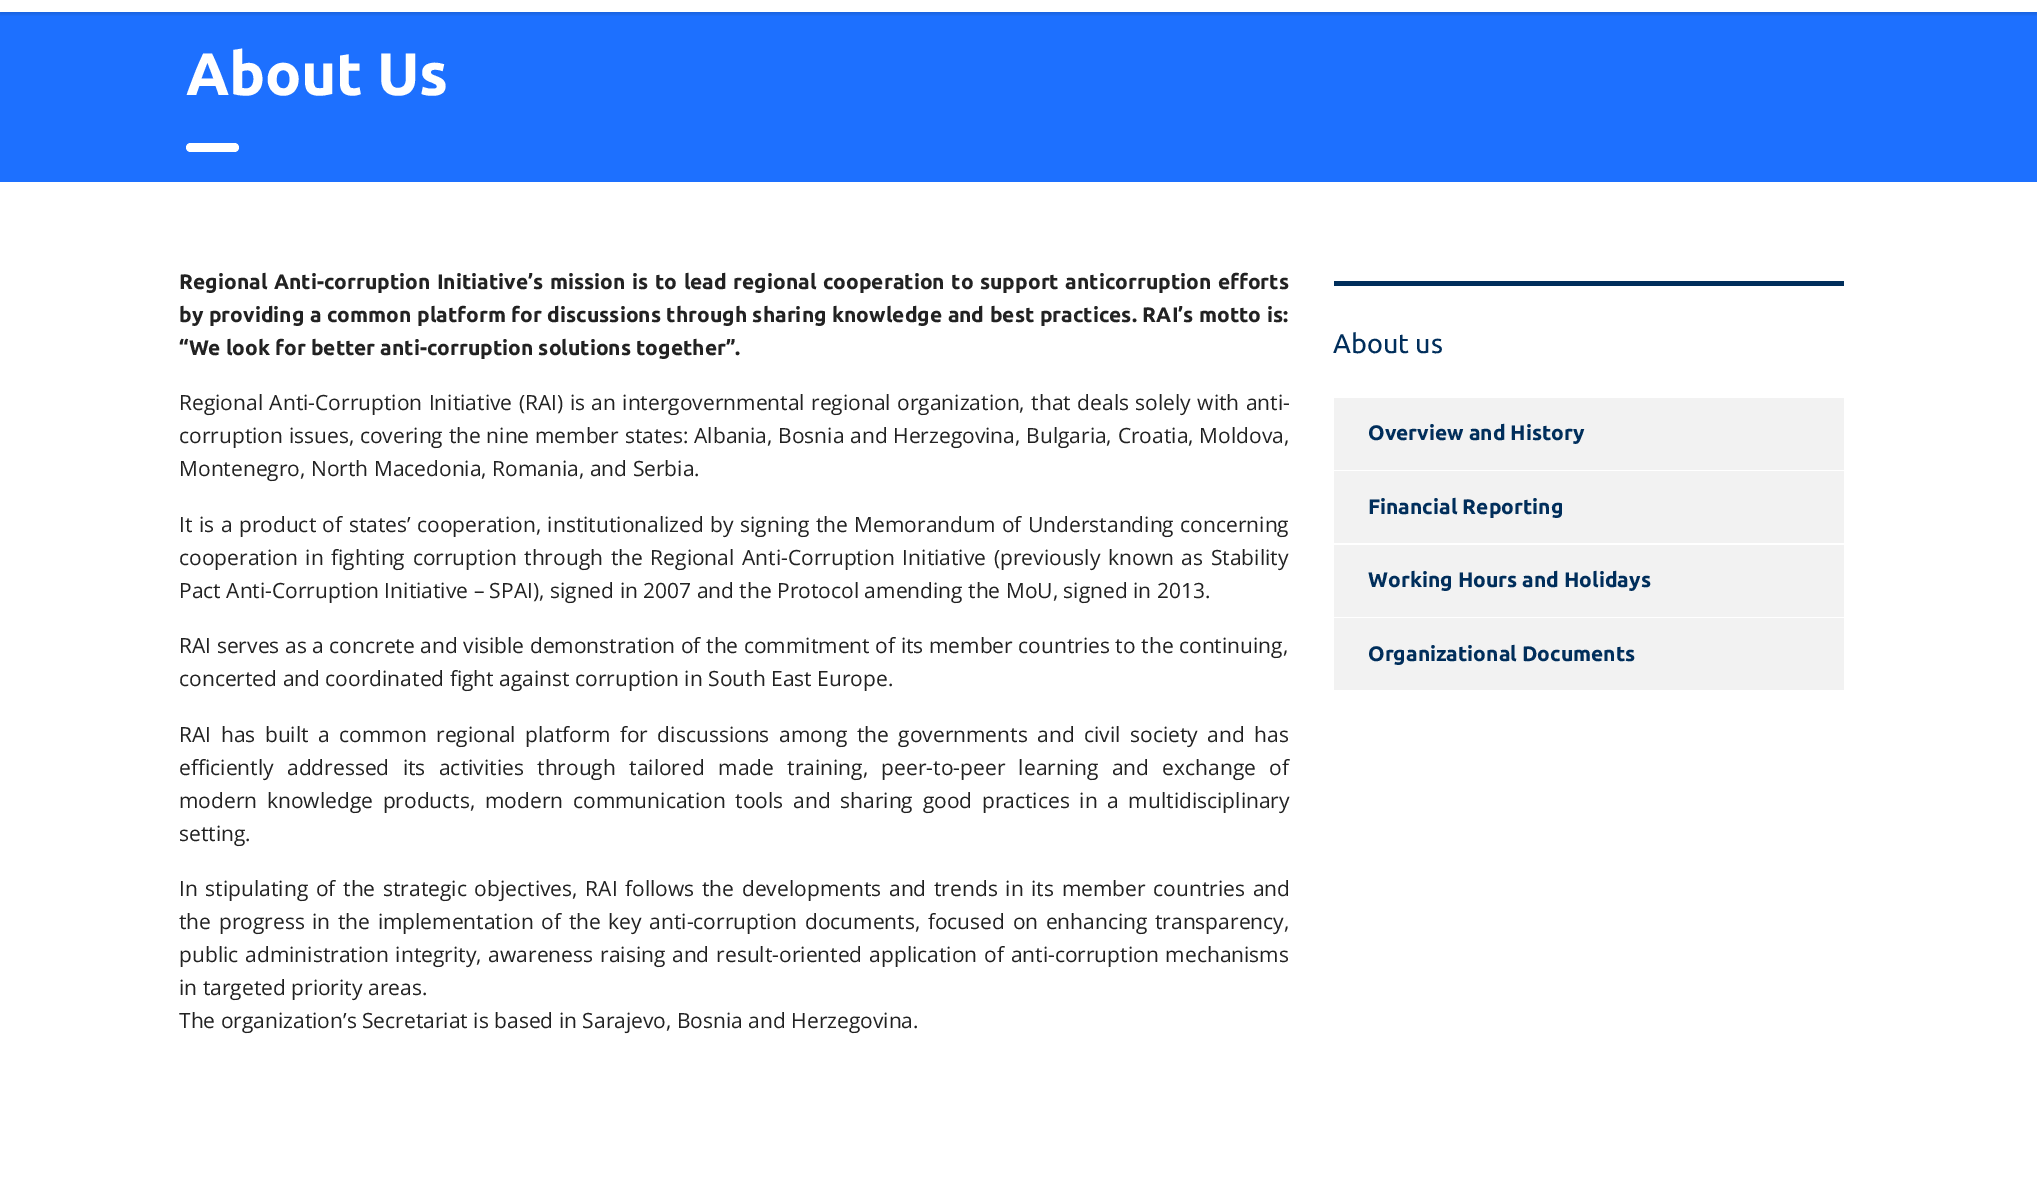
%!PS-Adobe-3.0
%%BoundingBox: 0 0 2037 1181
%%LanguageLevel: 3
%%Pages: 1
%%EndComments
%%BeginProlog
/setalpha { dup .setfillconstantalpha .setstrokeconstantalpha } def
/rrect { 5 dict begin { /r /h /w /y /x } { exch def } forall
  x r add y moveto x w add y 2 copy h add r arct x w add y h add x 1 index r arct
  x y h add x y r arct x y 2 copy exch w add exch r arct closepath end } def
/softshadow { 12 dict begin { /a /b /q /h /w /y /x } { exch def } forall gsave /was 0 def
  9 -2 -9 { dup b mul 4 div /e exch def 1 sub .425 mul 2.718 exch exp 1 add a .99 .min exch div /now exch def
    1 1 now sub 1 was sub div sub setalpha /was now def
    w h .min e 2 mul add 0 gt { x e sub y e sub w e 2 mul add h e 2 mul add
      q e add b .6 mul add w h .min 2 div e add .min 0 .max rrect fill } if } for grestore end } def
%%EndProlog
%%BeginSetup
<< /PageSize [2037 1181] /PageUsesTransparency true >> setpagedevice
%%EndSetup
%%Page: 1 1
0 .pushpdf14devicefilter
0 1181 translate 1 -1 scale
4 setmiterlimit
1 setgray
0 0 2037 1181 rectfill
0.114 0.439 1 setrgbcolor
0 12 2037 170 rectfill
gsave
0 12 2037 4 rectclip
0 setgray
0 -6 2037 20 0 2 0.15 softshadow
grestore
1 setgray
186 143 53 9 4.5 rrect fill
0 0.18 0.357 setrgbcolor
1334 281 510 5 rectfill
0.949 setgray
1334 398 510 72 rectfill
1334 471 510 72 rectfill
1334 545 510 72 rectfill
1334 618 510 72 rectfill
/Ubuntu-Bold [60 0 0 -60 0 0] selectfont
1 setgray
186 95 moveto -0.25 0 (About Us) ashow
/Ubuntu-Bold [21 0 0 -21 0 0] selectfont
0.133 setgray
179 289 moveto 1.5 0 32 (Regional Anti-corruption Initiative’s mission is to lead regional cooperation to support anticorruption efforts) widthshow
179 322 moveto 0.5 0 32 (by providing a common platform for discussions through sharing knowledge and best practices. RAI’s motto is:) widthshow
179 355 moveto (“We look for better anti-corruption solutions together”.) show
/OpenSans-Regular [21 0 0 -21 0 0] selectfont
179 410 moveto 1 0 32 (Regional Anti-Corruption Initiative \(RAI\) is an intergovernmental regional organization, that deals solely with anti-) widthshow
179 443 moveto 0.25 0 32 (corruption issues, covering the nine member states: Albania, Bosnia and Herzegovina, Bulgaria, Croatia, Moldova,) widthshow
179 476 moveto (Montenegro, North Macedonia, Romania, and Serbia.) show
179 532 moveto 1 0 32 (It is a product of states’ cooperation, institutionalized by signing the Memorandum of Understanding concerning) widthshow
179 565 moveto 2.25 0 32 (cooperation in fighting corruption through the Regional Anti-Corruption Initiative \(previously known as Stability) widthshow
179 598 moveto (Pact Anti-Corruption Initiative – SPAI\), signed in 2007 and the Protocol amending the MoU, signed in 2013.) show
179 653 moveto 0.1 0 32 (RAI serves as a concrete and visible demonstration of the commitment of its member countries to the continuing,) widthshow
179 686 moveto (concerted and coordinated fight against corruption in South East Europe.) show
179 742 moveto 4.1 0 32 (RAI has built a common regional platform for discussions among the governments and civil society and has) widthshow
179 775 moveto 7.9 0 32 (efficiently addressed its activities through tailored made training, peer-to-peer learning and exchange of) widthshow
179 808 moveto 4.25 0 32 (modern knowledge products, modern communication tools and sharing good practices in a multidisciplinary) widthshow
179 841 moveto (setting.) show
179 896 moveto 2.25 0 32 (In stipulating of the strategic objectives, RAI follows the developments and trends in its member countries and) widthshow
179 929 moveto 2.1 0 32 (the progress in the implementation of the key anti-corruption documents, focused on enhancing transparency,) widthshow
179 962 moveto 1.4 0 32 (public administration integrity, awareness raising and result-oriented application of anti-corruption mechanisms) widthshow
179 995 moveto (in targeted priority areas.) show
179 1028 moveto (The organization’s Secretariat is based in Sarajevo, Bosnia and Herzegovina.) show
/Ubuntu-Regular [27 0 0 -27 0 0] selectfont
0 0.18 0.357 setrgbcolor
1333 353 moveto (About us) show
/Ubuntu-Bold [21 0 0 -21 0 0] selectfont
1368 440 moveto (Overview and History) show
1368 514 moveto (Financial Reporting) show
1368 587 moveto (Working Hours and Holidays) show
1368 661 moveto (Organizational Documents) show
.poppdf14devicefilter showpage
%%EOF
